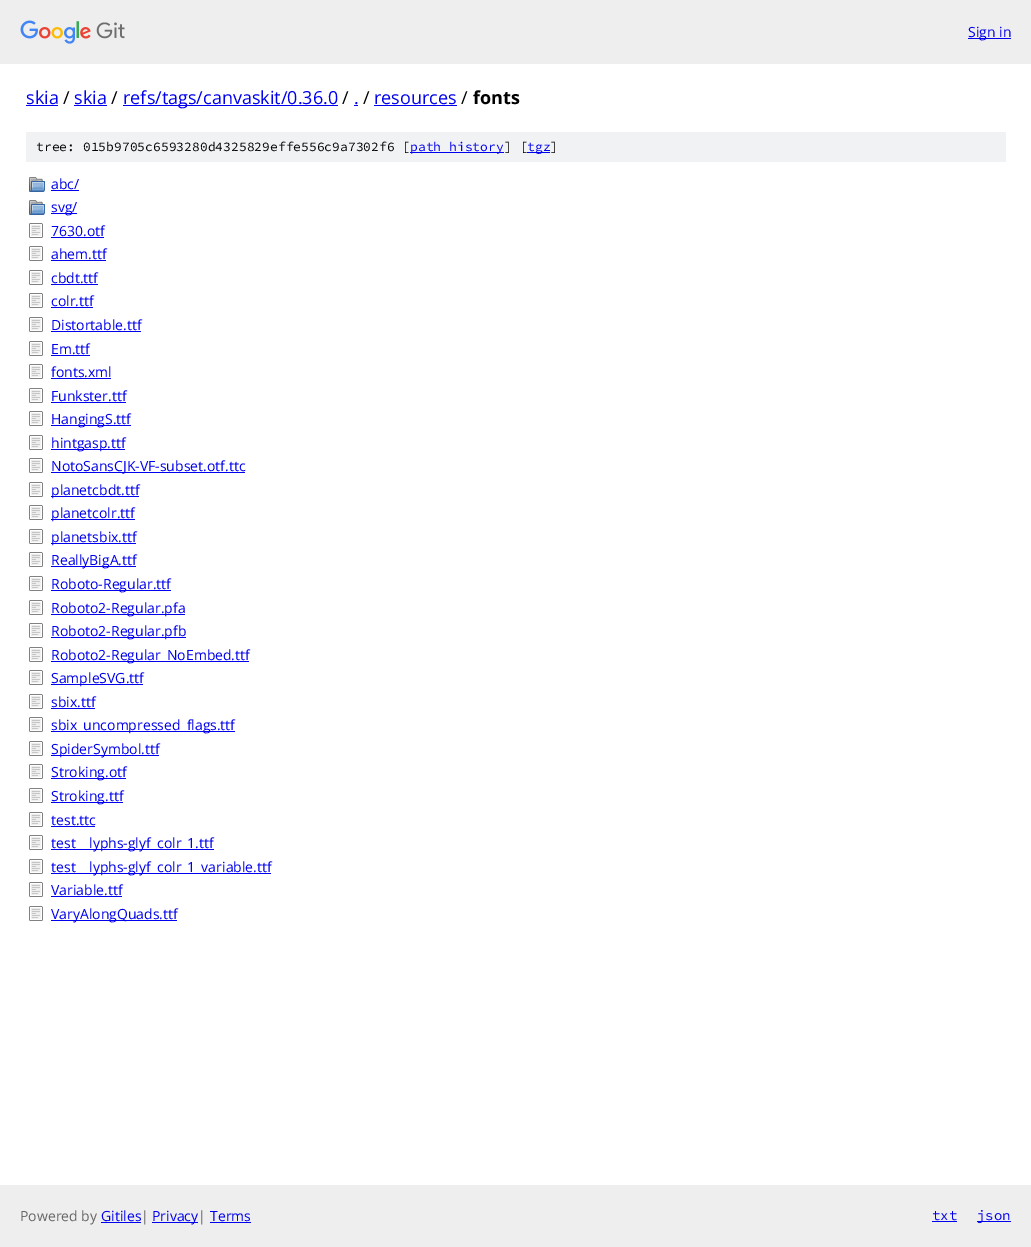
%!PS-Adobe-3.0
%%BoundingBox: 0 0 1031 1247
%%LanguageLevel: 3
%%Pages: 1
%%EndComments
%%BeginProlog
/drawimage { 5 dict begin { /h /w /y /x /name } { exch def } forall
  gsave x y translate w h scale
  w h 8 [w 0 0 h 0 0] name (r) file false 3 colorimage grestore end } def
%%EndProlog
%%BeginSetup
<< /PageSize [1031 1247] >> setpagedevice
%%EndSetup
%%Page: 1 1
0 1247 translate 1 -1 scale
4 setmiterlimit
1 setgray
0 0 1031 1247 rectfill
0.933 setgray
0 0 1031 64 rectfill
(images/1.raw) 20 20 105 24 drawimage
0 0 0.933 setrgbcolor
968 38 43 1 rectfill
26 105 32 1 rectfill
74 105 33 1 rectfill
123 105 215 1 rectfill
354 105 4 1 rectfill
374 105 83 1 rectfill
0.945 0.949 0.953 setrgbcolor
26 132 980 30 rectfill
0 0 0.933 setrgbcolor
410 152 94 1 rectfill
527 152 23 1 rectfill
(images/2.raw) 29 177 16 15 drawimage
51 190 28 1 rectfill
(images/2.raw) 29 200 16 15 drawimage
51 213 26 1 rectfill
(images/3.raw) 29 223 14 15 drawimage
51 237 53 1 rectfill
(images/3.raw) 29 246 14 15 drawimage
51 260 55 1 rectfill
(images/3.raw) 29 270 14 15 drawimage
51 284 47 1 rectfill
(images/3.raw) 29 293 14 15 drawimage
51 307 42 1 rectfill
(images/3.raw) 29 317 14 15 drawimage
51 331 90 1 rectfill
(images/3.raw) 29 341 14 15 drawimage
51 355 39 1 rectfill
(images/3.raw) 29 364 14 15 drawimage
51 378 60 1 rectfill
(images/3.raw) 29 388 14 15 drawimage
51 402 75 1 rectfill
(images/3.raw) 29 411 14 15 drawimage
51 425 80 1 rectfill
(images/3.raw) 29 435 14 15 drawimage
51 449 74 1 rectfill
(images/3.raw) 29 458 14 15 drawimage
51 472 194 1 rectfill
(images/3.raw) 29 482 14 15 drawimage
51 496 88 1 rectfill
(images/3.raw) 29 505 14 15 drawimage
51 519 84 1 rectfill
(images/3.raw) 29 529 14 15 drawimage
51 543 85 1 rectfill
(images/3.raw) 29 552 14 15 drawimage
51 566 85 1 rectfill
(images/3.raw) 29 576 14 15 drawimage
51 590 120 1 rectfill
(images/3.raw) 29 600 14 15 drawimage
51 614 134 1 rectfill
(images/3.raw) 29 623 14 15 drawimage
51 637 135 1 rectfill
(images/3.raw) 29 647 14 15 drawimage
51 661 198 1 rectfill
(images/3.raw) 29 670 14 15 drawimage
51 684 92 1 rectfill
(images/3.raw) 29 694 14 15 drawimage
51 708 44 1 rectfill
(images/3.raw) 29 717 14 15 drawimage
51 731 184 1 rectfill
(images/3.raw) 29 741 14 15 drawimage
51 755 108 1 rectfill
(images/3.raw) 29 764 14 15 drawimage
51 778 75 1 rectfill
(images/3.raw) 29 788 14 15 drawimage
51 802 72 1 rectfill
(images/3.raw) 29 812 14 15 drawimage
51 826 44 1 rectfill
(images/3.raw) 29 835 14 15 drawimage
51 849 163 1 rectfill
(images/3.raw) 29 859 14 15 drawimage
51 873 220 1 rectfill
(images/3.raw) 29 882 14 15 drawimage
51 896 71 1 rectfill
(images/3.raw) 29 906 14 15 drawimage
51 920 126 1 rectfill
0.933 setgray
0 1185 1031 62 rectfill
0 0 0.933 setrgbcolor
101 1222 40 1 rectfill
152 1222 46 1 rectfill
210 1222 41 1 rectfill
932 1221 25 1 rectfill
977 1221 34 1 rectfill
/OpenSans-Regular [14 0 0 -14 0 0] selectfont
968 37 moveto (Sign in) show
/OpenSans-Regular [18 0 0 -18 0 0] selectfont
26 104 moveto (skia) show
0 setgray
63 104 moveto (/) show
0 0 0.933 setrgbcolor
74 104 moveto (skia) show
0 setgray
111 104 moveto (/) show
0 0 0.933 setrgbcolor
123 104 moveto (refs/tags/canvaskit/0.36.0) show
0 setgray
342 104 moveto (/) show
0 0 0.933 setrgbcolor
354 104 moveto (.) show
0 setgray
363 104 moveto (/) show
0 0 0.933 setrgbcolor
374 104 moveto (resources) show
0 setgray
461 104 moveto (/) show
/OpenSans-Bold [18 0 0 -18 0 0] selectfont
473 104 moveto (fonts) show
/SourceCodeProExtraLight-ExtraLight [13 0 0 -13 0 0] selectfont
36 151 moveto (tree: 015b9705c6593280d4325829effe556c9a7302f6 [) show
0 0 0.933 setrgbcolor
410 151 moveto (path history) show
0 setgray
504 151 moveto (] [) show
0 0 0.933 setrgbcolor
527 151 moveto (tgz) show
0 setgray
550 151 moveto (]) show
/OpenSans-Regular [14 0 0 -14 0 0] selectfont
0 0 0.933 setrgbcolor
51 189 moveto (abc/) show
51 212 moveto (svg/) show
51 236 moveto (7630.otf) show
51 259 moveto (ahem.ttf) show
51 283 moveto (cbdt.ttf) show
51 306 moveto (colr.ttf) show
51 330 moveto (Distortable.ttf) show
51 354 moveto (Em.ttf) show
51 377 moveto (fonts.xml) show
51 401 moveto (Funkster.ttf) show
51 424 moveto (HangingS.ttf) show
51 448 moveto (hintgasp.ttf) show
51 471 moveto (NotoSansCJK-VF-subset.otf.ttc) show
51 495 moveto (planetcbdt.ttf) show
51 518 moveto (planetcolr.ttf) show
51 542 moveto (planetsbix.ttf) show
51 565 moveto (ReallyBigA.ttf) show
51 589 moveto (Roboto-Regular.ttf) show
51 613 moveto (Roboto2-Regular.pfa) show
51 636 moveto (Roboto2-Regular.pfb) show
51 660 moveto (Roboto2-Regular_NoEmbed.ttf) show
51 683 moveto (SampleSVG.ttf) show
51 707 moveto (sbix.ttf) show
51 730 moveto (sbix_uncompressed_flags.ttf) show
51 754 moveto (SpiderSymbol.ttf) show
51 777 moveto (Stroking.otf) show
51 801 moveto (Stroking.ttf) show
51 825 moveto (test.ttc) show
51 848 moveto (test) show
89 848 moveto (lyphs-glyf_colr_1.ttf) show
51 872 moveto (test) show
89 872 moveto (lyphs-glyf_colr_1_variable.ttf) show
51 895 moveto (Variable.ttf) show
51 919 moveto (VaryAlongQuads.ttf) show
0.4 setgray
20 1221 moveto (Powered by) show
0 0 0.933 setrgbcolor
101 1221 moveto (Gitiles) show
0.4 setgray
141 1221 moveto (|) show
0 0 0.933 setrgbcolor
152 1221 moveto (Privacy) show
0.4 setgray
198 1221 moveto (|) show
0 0 0.933 setrgbcolor
210 1221 moveto (Terms) show
/SourceCodeProExtraLight-ExtraLight [14 0 0 -14 0 0] selectfont
932 1220 moveto (txt) show
977 1220 moveto (json) show
showpage
%%EOF
